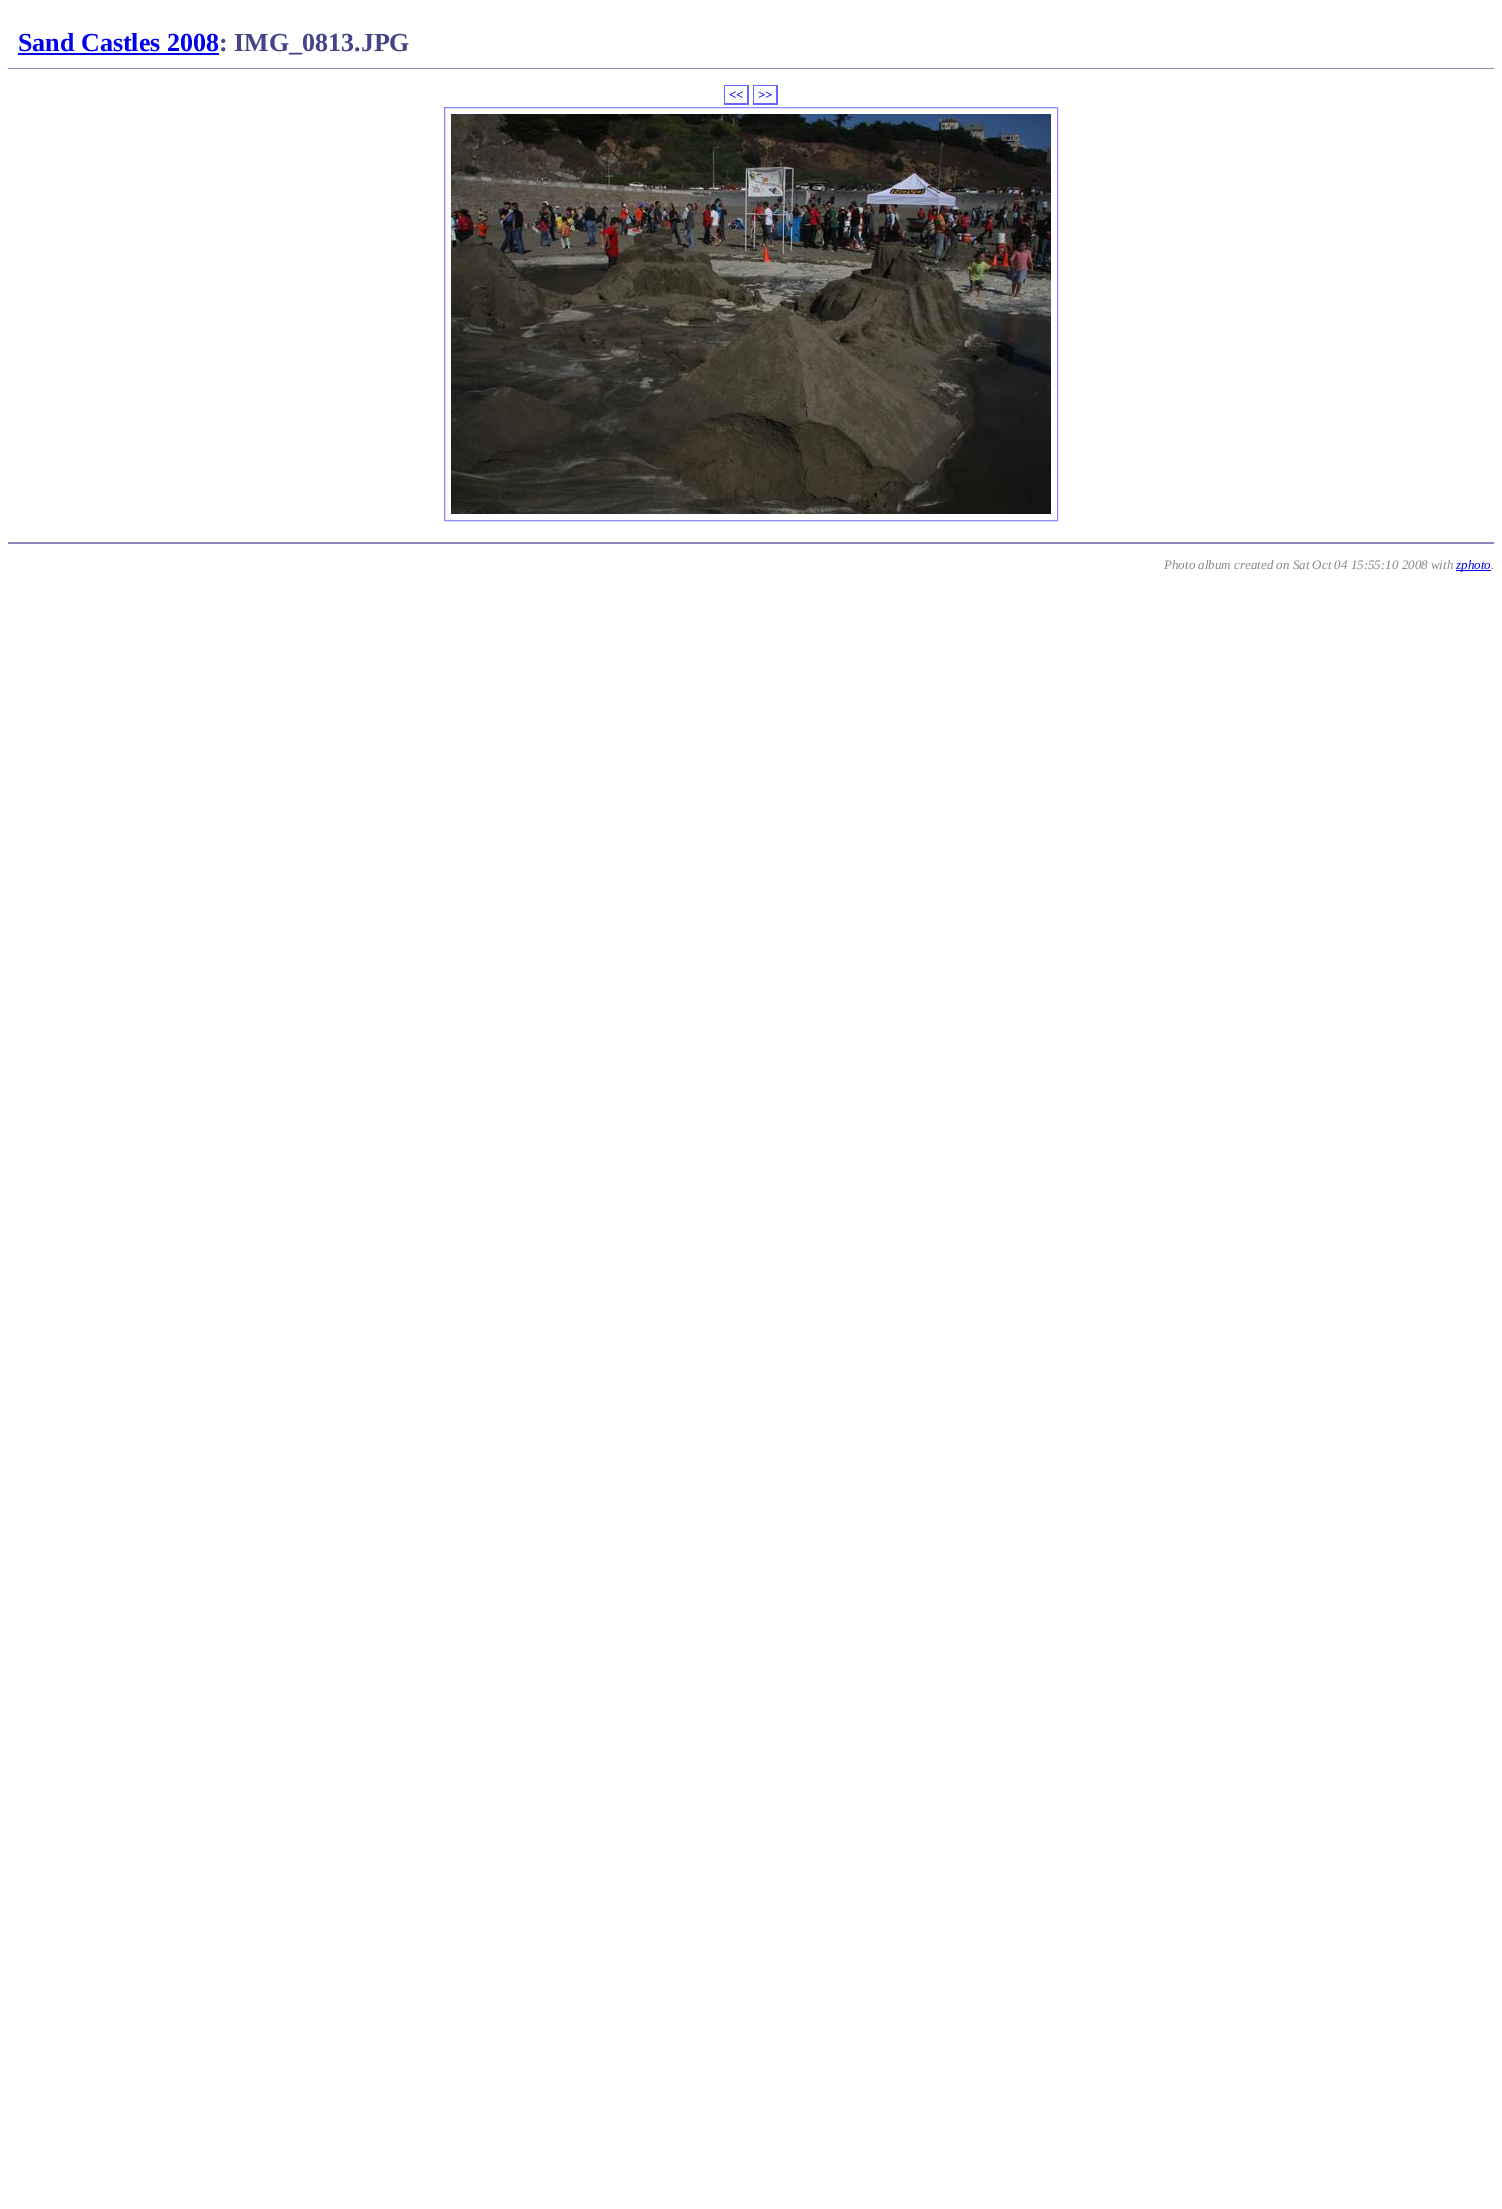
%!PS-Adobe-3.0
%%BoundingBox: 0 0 1502 2209
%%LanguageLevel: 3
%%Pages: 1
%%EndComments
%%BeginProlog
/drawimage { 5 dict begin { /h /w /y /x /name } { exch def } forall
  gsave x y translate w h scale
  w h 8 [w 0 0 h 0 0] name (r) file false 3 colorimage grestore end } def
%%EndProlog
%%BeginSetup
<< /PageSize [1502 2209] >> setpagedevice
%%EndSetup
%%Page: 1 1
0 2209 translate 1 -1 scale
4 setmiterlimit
1 setgray
0 0 1502 2209 rectfill
0.533 0.533 0.733 setrgbcolor
8 68 1486 1 rectfill
0 0 0.933 setrgbcolor
18 53 201 2 rectfill
0.4 0.4 1 setrgbcolor
724 85 25 1 rectfill
747 85 2 20 rectfill
724 103 25 2 rectfill
724 85 1 20 rectfill
753 85 25 1 rectfill
776 85 2 20 rectfill
753 103 25 2 rectfill
753 85 1 20 rectfill
0.533 0.533 1 setrgbcolor
444.5 107.5 613 413 rectstroke
(images/1.raw) 451 114 600 400 drawimage
0.533 0.533 0.733 setrgbcolor
8 542 1486 2 rectfill
0 0 0.933 setrgbcolor
1456 570 35 1 rectfill
/LiberationSerif-Bold [26 0 0 -26 0 0] selectfont
18 51 moveto (Sand Castles 2008) show
0.267 0.267 0.533 setrgbcolor
219 51 moveto (: IMG_0813.JPG) show
/LiberationSerif-Bold [13 0 0 -13 0 0] selectfont
0 0 1 setrgbcolor
729 99 moveto (<<) show
758 99 moveto (>>) show
/LiberationSerif-Italic [13 0 0 -13 0 0] selectfont
0.533 setgray
1164 569 moveto (Photo album created on Sat Oct 04 15:55:10 2008 with) show
0 0 0.933 setrgbcolor
1456 569 moveto (zphoto) show
0.533 setgray
1491 569 moveto (.) show
showpage
%%EOF
